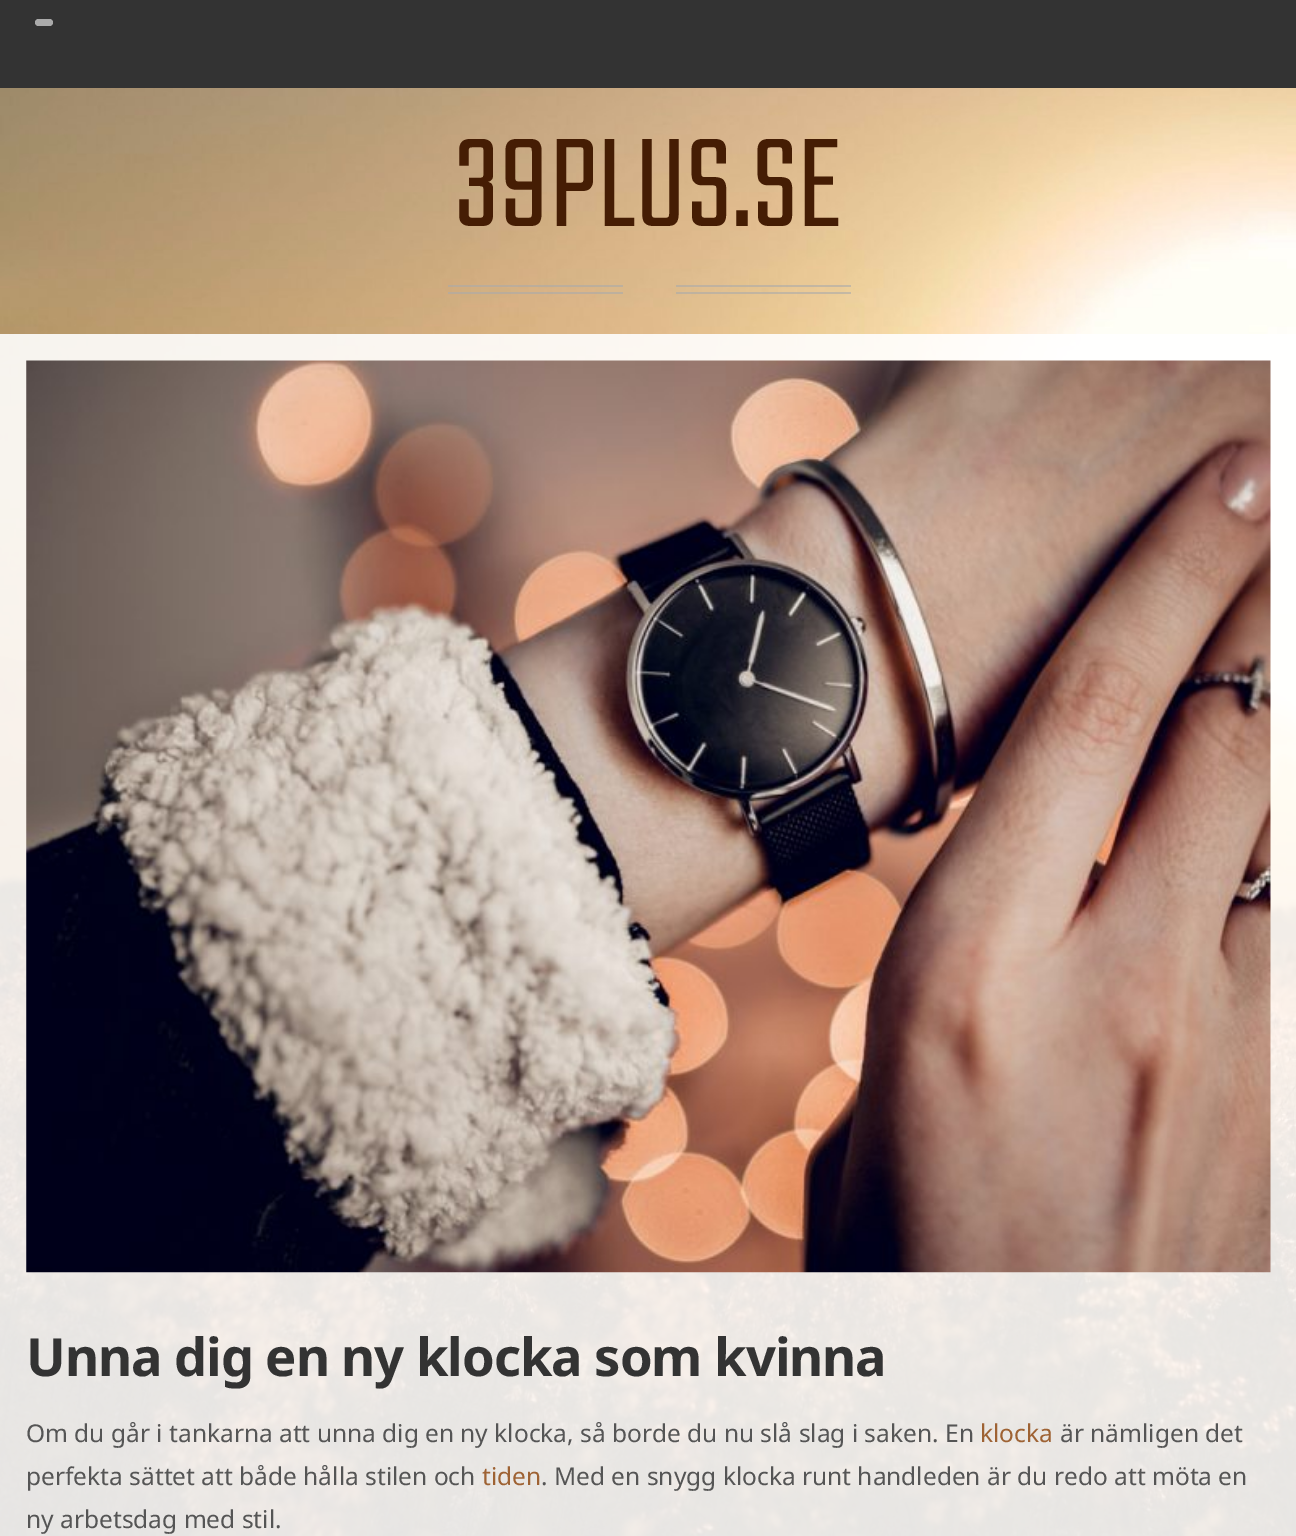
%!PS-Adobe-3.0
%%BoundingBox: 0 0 1296 1536
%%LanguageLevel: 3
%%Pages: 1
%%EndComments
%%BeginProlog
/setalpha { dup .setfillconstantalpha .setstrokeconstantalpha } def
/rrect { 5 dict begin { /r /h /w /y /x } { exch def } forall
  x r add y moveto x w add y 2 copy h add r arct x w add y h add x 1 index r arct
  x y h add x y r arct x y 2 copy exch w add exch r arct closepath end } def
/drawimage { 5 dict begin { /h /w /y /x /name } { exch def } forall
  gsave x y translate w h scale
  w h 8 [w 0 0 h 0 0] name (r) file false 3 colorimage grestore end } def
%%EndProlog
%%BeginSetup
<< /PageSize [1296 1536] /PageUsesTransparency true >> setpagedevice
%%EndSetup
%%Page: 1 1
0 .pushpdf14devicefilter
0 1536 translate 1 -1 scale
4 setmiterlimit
1 setgray
0 0 1296 1536 rectfill
(images/1.raw) 0 88 1296 1448 drawimage
0.2 setgray
0 0 1296 88 rectfill
0.667 setgray
35 19 18 7 3.5 rrect fill
0.6 setalpha
448 285 175 2 rectfill
448 292 175 2 rectfill
676 285 175 2 rectfill
676 292 175 2 rectfill
0.89 setalpha
1 setgray
0 334 1296 1202 rectfill
1 setalpha
(images/2.raw) 26 360 1245 913 drawimage
/Teko-Light [140 0 0 -140 0 0] selectfont
0.271 0.114 0.016 setrgbcolor
455 226 moveto (39PLUS.SE) show
/NotoSans-Bold [52.5 0 0 -52.5 0 0] selectfont
0.2 setgray
26 1376 moveto -1.05 0 (Unna dig en ny klocka som kvinna) ashow
/NotoSans-Regular [24.5 0 0 -24.5 0 0] selectfont
0.333 setgray
26 1442 moveto (Om du går i tankarna att unna dig en ny klocka, så borde du nu slå slag i saken. En) show
0.62 0.384 0.2 setrgbcolor
980 1442 moveto (klocka) show
0.333 setgray
1060 1442 moveto (är nämligen det) show
26 1485 moveto (perfekta sättet att både hålla stilen och) show
0.62 0.384 0.2 setrgbcolor
482 1485 moveto (tiden) show
0.333 setgray
541 1485 moveto (. Med en snygg klocka runt handleden är du redo att möta en) show
26 1528 moveto (ny arbetsdag med stil.) show
.poppdf14devicefilter showpage
%%EOF
